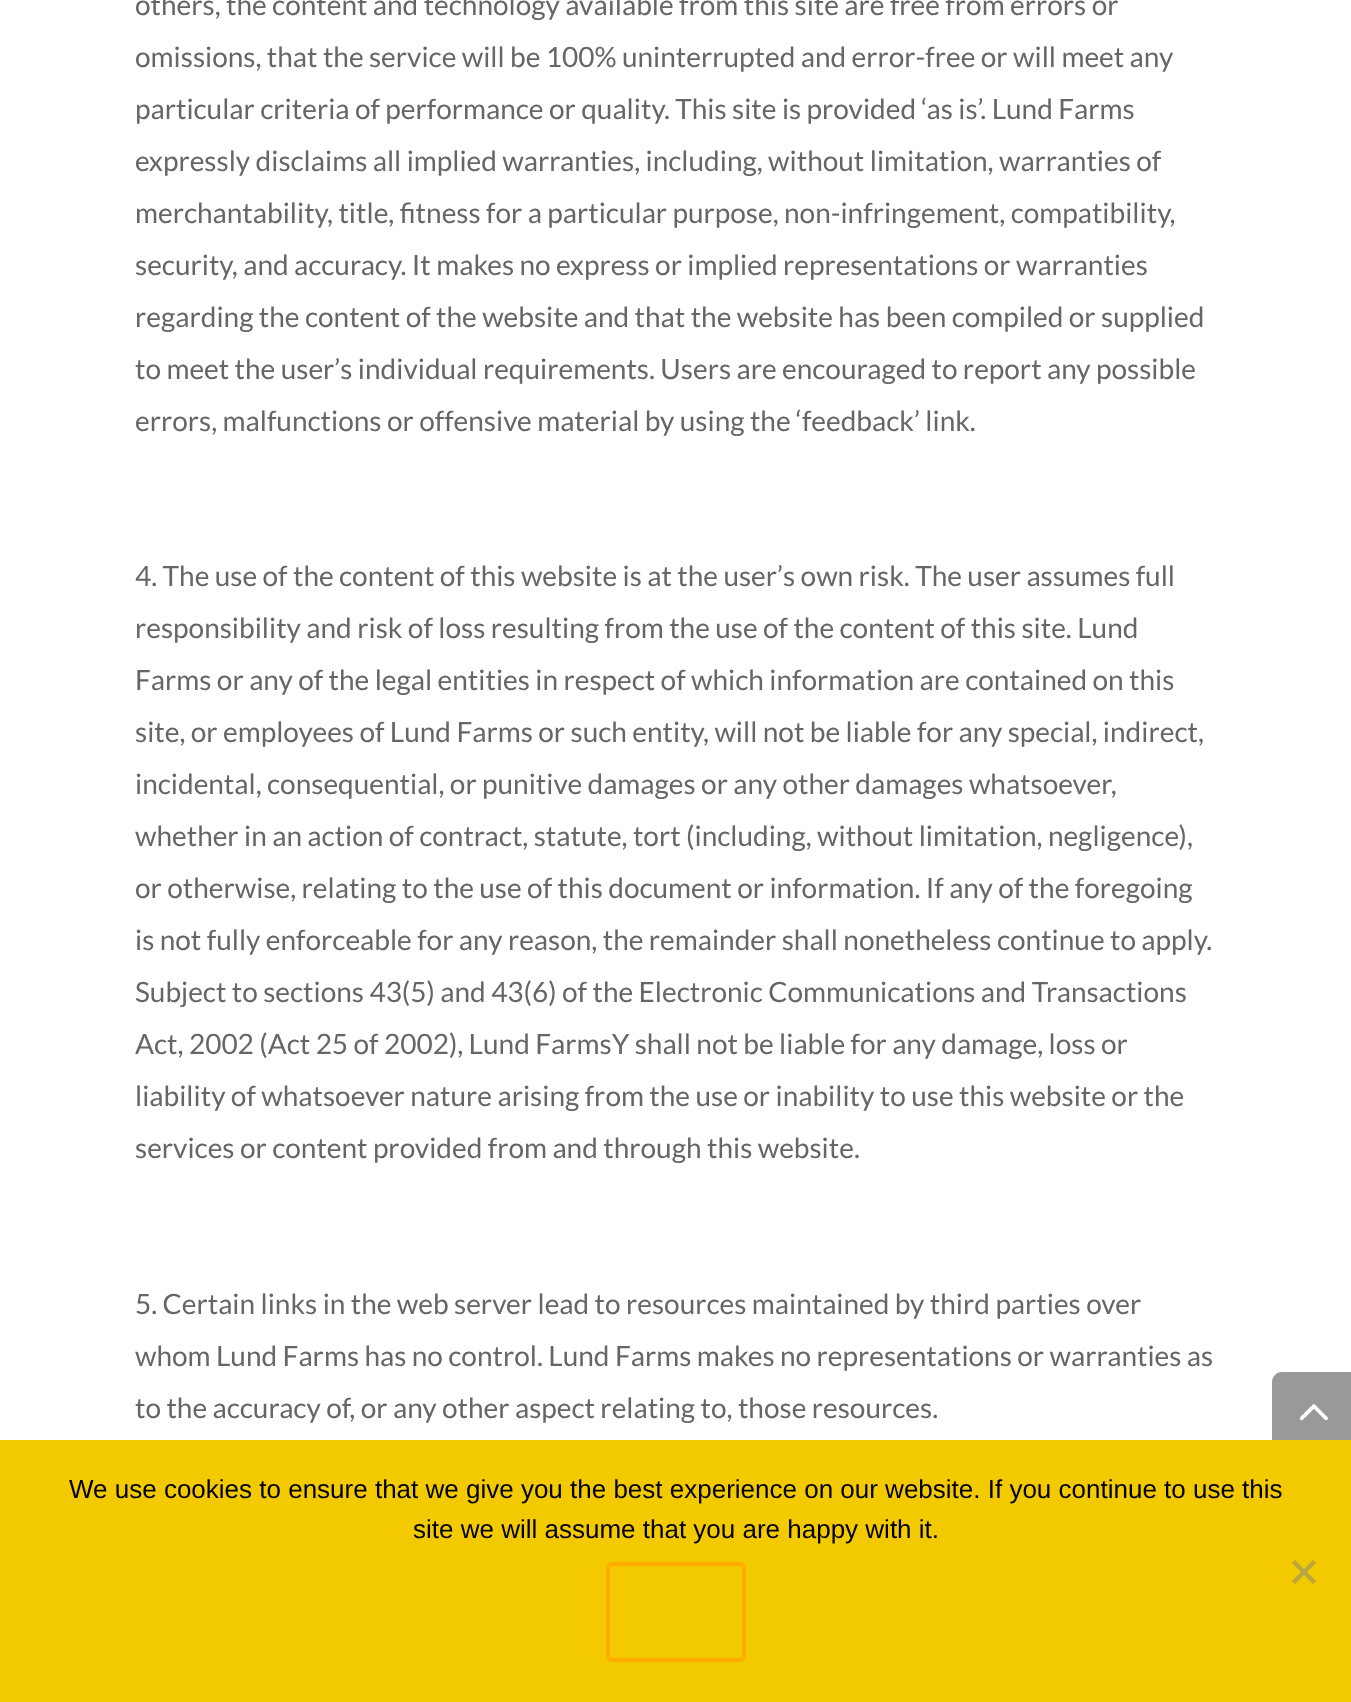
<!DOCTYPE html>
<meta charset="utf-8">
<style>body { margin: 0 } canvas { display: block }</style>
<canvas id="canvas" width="1351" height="1702"></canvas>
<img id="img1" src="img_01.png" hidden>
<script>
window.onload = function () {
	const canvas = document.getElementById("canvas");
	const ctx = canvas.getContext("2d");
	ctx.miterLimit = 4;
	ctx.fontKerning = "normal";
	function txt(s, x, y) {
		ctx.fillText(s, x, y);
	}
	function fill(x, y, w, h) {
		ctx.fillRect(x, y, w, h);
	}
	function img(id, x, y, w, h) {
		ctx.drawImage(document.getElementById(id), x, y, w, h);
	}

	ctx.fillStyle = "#FFFFFF";
	fill(0, 0, 1351, 1702);
	ctx.fillStyle = "#999999";
	ctx.beginPath();
	ctx.moveTo(1282, 1372);
	ctx.lineTo(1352, 1372);
	ctx.lineTo(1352, 1452);
	ctx.lineTo(1282, 1452);
	ctx.bezierCurveTo(1276.5, 1452, 1272, 1447.5, 1272, 1442);
	ctx.lineTo(1272, 1382);
	ctx.bezierCurveTo(1272, 1376.5, 1276.5, 1372, 1282, 1372);
	ctx.closePath();
	ctx.fill();
	img("img1", 1299, 1404, 29, 17);
	ctx.fillStyle = "#F3CA00";
	fill(0, 1440, 1351, 262);
	ctx.beginPath();
	ctx.roundRect(608, 1564, 136, 96, 4);
	ctx.strokeStyle = "#FFAC01";
	ctx.lineWidth = 4;
	ctx.stroke();
	ctx.fillStyle = "#BAA540";
	ctx.beginPath();
	ctx.moveTo(1313, 1560);
	ctx.lineTo(1316, 1563);
	ctx.lineTo(1295, 1584);
	ctx.lineTo(1292, 1581);
	ctx.closePath();
	ctx.fill();
	ctx.beginPath();
	ctx.moveTo(1292, 1563);
	ctx.lineTo(1295, 1560);
	ctx.lineTo(1316, 1581);
	ctx.lineTo(1313, 1584);
	ctx.closePath();
	ctx.fill();
	ctx.font = "28px Lato";
	ctx.fillStyle = "#666666";
	txt("others, the content and technology available from this site are free from errors or", 135, 15);
	txt("omissions, that the service will be 100% uninterrupted and error-free or will meet any", 135, 67);
	txt("particular criteria of performance or quality. This site is provided ‘as is’. Lund Farms", 135, 119);
	txt("expressly disclaims all implied warranties, including, without limitation, warranties of", 135, 171);
	txt("merchantability, title, fitness for a particular purpose, non-infringement, compatibility,", 135, 223);
	txt("security, and accuracy. It makes no express or implied representations or warranties", 135, 275);
	txt("regarding the content of the website and that the website has been compiled or supplied", 135, 327);
	txt("to meet the user’s individual requirements. Users are encouraged to report any possible", 135, 379);
	txt("errors, malfunctions or offensive material by using the ‘feedback’ link.", 135, 431);
	txt("4. The use of the content of this website is at the user’s own risk. The user assumes full", 135, 586);
	txt("responsibility and risk of loss resulting from the use of the content of this site. Lund", 135, 638);
	txt("Farms or any of the legal entities in respect of which information are contained on this", 135, 690);
	txt("site, or employees of Lund Farms or such entity, will not be liable for any special, indirect,", 135, 742);
	txt("incidental, consequential, or punitive damages or any other damages whatsoever,", 135, 794);
	txt("whether in an action of contract, statute, tort (including, without limitation, negligence),", 135, 846);
	txt("or otherwise, relating to the use of this document or information. If any of the foregoing", 135, 898);
	txt("is not fully enforceable for any reason, the remainder shall nonetheless continue to apply.", 135, 950);
	txt("Subject to sections 43(5) and 43(6) of the Electronic Communications and Transactions", 135, 1002);
	txt("Act, 2002 (Act 25 of 2002), Lund FarmsY shall not be liable for any damage, loss or", 135, 1054);
	txt("liability of whatsoever nature arising from the use or inability to use this website or the", 135, 1106);
	txt("services or content provided from and through this website.", 135, 1158);
	txt("5. Certain links in the web server lead to resources maintained by third parties over", 135, 1314);
	txt("whom Lund Farms has no control. Lund Farms makes no representations or warranties as", 135, 1366);
	txt("to the accuracy of, or any other aspect relating to, those resources.", 135, 1418);
	ctx.font = "26px Liberation Sans";
	ctx.fillStyle = "#000000";
	txt("We use cookies to ensure that we give you the best experience on our website. If you continue to use this", 69, 1498);
	txt("site we will assume that you are happy with it.", 413, 1538);
};
</script>
